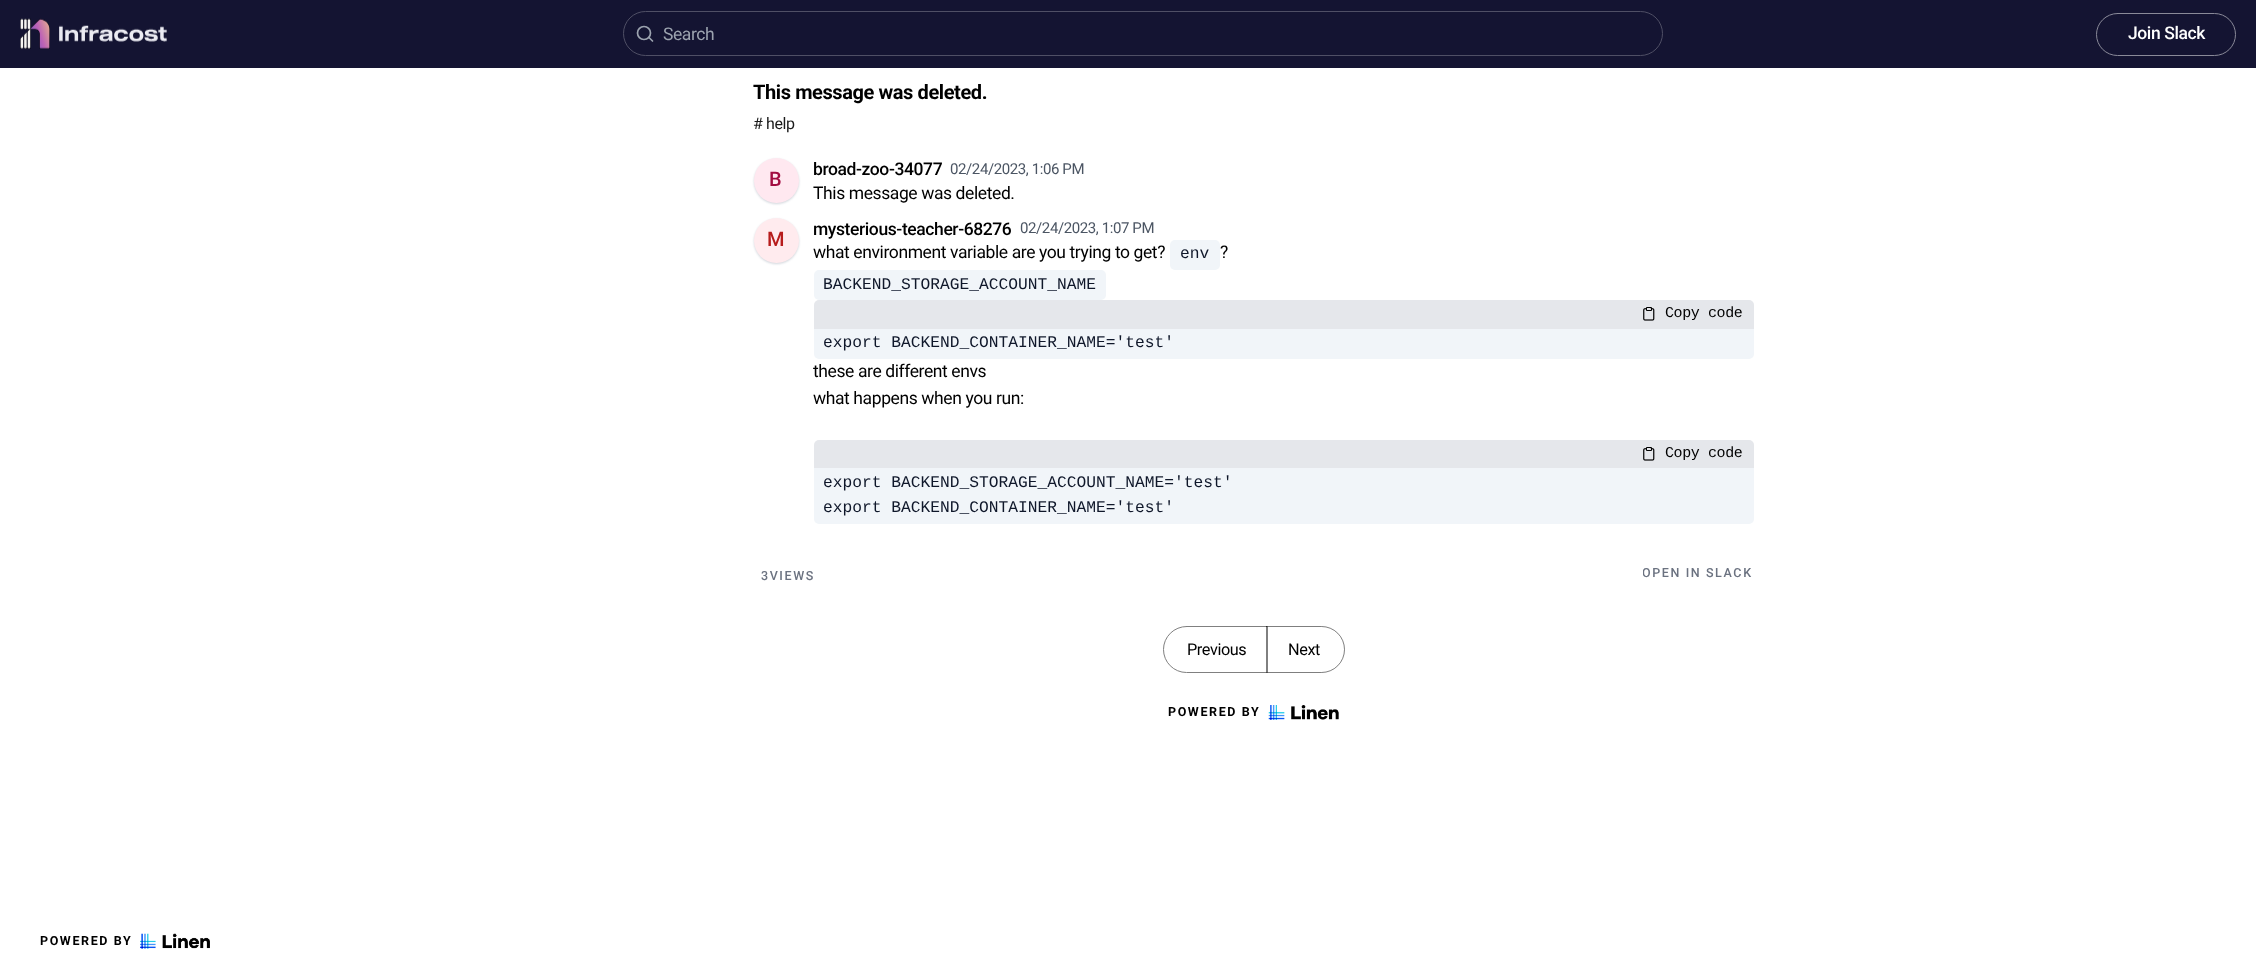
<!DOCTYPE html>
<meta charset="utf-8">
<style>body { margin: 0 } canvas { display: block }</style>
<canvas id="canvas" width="2256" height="961"></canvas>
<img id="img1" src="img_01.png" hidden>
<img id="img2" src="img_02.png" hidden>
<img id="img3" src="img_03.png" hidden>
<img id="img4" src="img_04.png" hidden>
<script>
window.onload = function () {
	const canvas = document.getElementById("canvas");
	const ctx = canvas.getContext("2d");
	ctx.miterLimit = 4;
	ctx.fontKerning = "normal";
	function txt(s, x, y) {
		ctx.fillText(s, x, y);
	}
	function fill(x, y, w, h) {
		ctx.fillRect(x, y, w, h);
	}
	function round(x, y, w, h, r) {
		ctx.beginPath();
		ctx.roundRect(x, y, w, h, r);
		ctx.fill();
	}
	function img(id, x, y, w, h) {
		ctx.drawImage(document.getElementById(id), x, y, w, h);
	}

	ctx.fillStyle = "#FFFFFF";
	fill(0, 0, 2256, 961);
	ctx.fillStyle = "#141432";
	fill(0, 0, 2256, 68);
	img("img1", 20, 18, 147, 31);
	ctx.beginPath();
	ctx.roundRect(623.5, 11.5, 1039, 44, 22);
	ctx.strokeStyle = "#4F4F65";
	ctx.stroke();
	ctx.beginPath();
	ctx.arc(644, 33, 6.5, 0, Math.PI * 2);
	ctx.strokeStyle = "#9CA3AF";
	ctx.lineWidth = 1.7;
	ctx.stroke();
	ctx.beginPath();
	ctx.moveTo(652.5, 41);
	ctx.lineTo(649, 37.5);
	ctx.lineCap = "round";
	ctx.lineJoin = "round";
	ctx.stroke();
	ctx.beginPath();
	ctx.roundRect(2096.5, 13.5, 139, 42, 21);
	ctx.strokeStyle = "#8A8A99";
	ctx.lineWidth = 1;
	ctx.lineJoin = "miter";
	ctx.stroke();
	ctx.fillStyle = "#D1D5DB";
	ctx.filter = "blur(1px)";
	ctx.beginPath();
	ctx.roundRect(754, 159, 45, 45, 22.5);
	ctx.fill();
	ctx.filter = "none";
	ctx.fillStyle = "#FFE8F0";
	ctx.beginPath();
	ctx.arc(776.5, 180.5, 22.5, 0, Math.PI * 2);
	ctx.fill();
	ctx.fillStyle = "#D1D5DB";
	ctx.filter = "blur(1px)";
	ctx.beginPath();
	ctx.roundRect(754, 219, 45, 45, 22.5);
	ctx.fill();
	ctx.filter = "none";
	ctx.fillStyle = "#FFEBEE";
	ctx.beginPath();
	ctx.arc(776.5, 240.5, 22.5, 0, Math.PI * 2);
	ctx.fill();
	ctx.fillStyle = "#F1F5F9";
	round(1170, 240, 50, 30, 5);
	round(814, 270, 292, 30, 5);
	ctx.fillStyle = "#E5E7EB";
	ctx.beginPath();
	ctx.roundRect(814, 300, 940, 29, [5, 5, 0, 0]);
	ctx.fill();
	img("img2", 1643, 307, 12, 14);
	ctx.fillStyle = "#F1F5F9";
	ctx.beginPath();
	ctx.roundRect(814, 329, 940, 30, [0, 0, 5, 5]);
	ctx.fill();
	ctx.fillStyle = "#E5E7EB";
	ctx.beginPath();
	ctx.roundRect(814, 440, 940, 28, [5, 5, 0, 0]);
	ctx.fill();
	img("img2", 1643, 447, 12, 14);
	ctx.fillStyle = "#F1F5F9";
	ctx.beginPath();
	ctx.roundRect(814, 468, 940, 56, [0, 0, 5, 5]);
	ctx.fill();
	ctx.beginPath();
	ctx.roundRect(1163.5, 626.5, 104, 46, [23, 0, 0, 23]);
	ctx.strokeStyle = "#808080";
	ctx.stroke();
	ctx.beginPath();
	ctx.roundRect(1266.5, 626.5, 78, 46, [0, 23, 23, 0]);
	ctx.strokeStyle = "rgba(0, 0, 0, 0.5)";
	ctx.stroke();
	img("img3", 1268, 705, 71, 15);
	img("img4", 140, 933, 70, 16);
	ctx.letterSpacing = "-0.4px";
	ctx.font = "17.5px Roboto";
	ctx.fillStyle = "#9CA3AF";
	txt("Search", 663, 40);
	ctx.font = "500 17.5px Roboto";
	ctx.fillStyle = "#FFFFFF";
	txt("Join Slack", 2128, 39);
	ctx.font = "bold 20px Roboto";
	ctx.fillStyle = "#000000";
	txt("This message was deleted.", 753, 99);
	ctx.font = "16px Roboto";
	ctx.fillStyle = "#1A1A1A";
	txt("# help", 753, 129);
	ctx.font = "500 20px Roboto";
	ctx.fillStyle = "#A20D41";
	txt("B", 769, 186);
	ctx.font = "500 17.5px Roboto";
	ctx.fillStyle = "#000000";
	txt("broad-zoo-34077", 813, 175);
	ctx.font = "15px Roboto";
	ctx.fillStyle = "#4B5563";
	txt("02/24/2023, 1:06 PM", 950, 174);
	ctx.font = "17.5px Roboto";
	ctx.fillStyle = "#000000";
	txt("This message was deleted.", 813, 199);
	ctx.font = "500 20px Roboto";
	ctx.fillStyle = "#B71C1C";
	txt("M", 767, 246);
	ctx.font = "500 17.5px Roboto";
	ctx.fillStyle = "#000000";
	txt("mysterious-teacher-68276", 813, 235);
	ctx.font = "15px Roboto";
	ctx.fillStyle = "#4B5563";
	txt("02/24/2023, 1:07 PM", 1020, 233);
	ctx.font = "17.5px Roboto";
	ctx.fillStyle = "#000000";
	txt("what environment variable are you trying to get?", 813, 258);
	ctx.letterSpacing = "0px";
	ctx.font = "16.25px Liberation Mono";
	ctx.fillStyle = "#0F172A";
	txt("env", 1180, 258);
	ctx.letterSpacing = "-0.4px";
	ctx.font = "17.5px Roboto";
	ctx.fillStyle = "#000000";
	txt("?", 1220, 258);
	ctx.letterSpacing = "0px";
	ctx.font = "16.25px Liberation Mono";
	ctx.fillStyle = "#0F172A";
	txt("BACKEND_STORAGE_ACCOUNT_NAME", 823, 289);
	ctx.letterSpacing = "-0.4px";
	ctx.font = "15px Liberation Mono";
	ctx.fillStyle = "#000000";
	txt("Copy code", 1665, 317);
	ctx.letterSpacing = "0px";
	ctx.font = "16.25px Liberation Mono";
	ctx.fillStyle = "#0F172A";
	txt("export BACKEND_CONTAINER_NAME='test'", 823, 347);
	ctx.letterSpacing = "-0.4px";
	ctx.font = "17.5px Roboto";
	ctx.fillStyle = "#000000";
	txt("these are different envs", 813, 377);
	txt("what happens when you run:", 813, 404);
	ctx.font = "15px Liberation Mono";
	txt("Copy code", 1665, 457);
	ctx.letterSpacing = "0px";
	ctx.font = "16.25px Liberation Mono";
	ctx.fillStyle = "#0F172A";
	txt("export BACKEND_STORAGE_ACCOUNT_NAME='test'", 823, 487);
	txt("export BACKEND_CONTAINER_NAME='test'", 823, 512);
	ctx.letterSpacing = "1.6px";
	ctx.font = "500 12.5px Roboto";
	ctx.fillStyle = "#6B7280";
	txt("3VIEWS", 761, 580);
	ctx.save();
	ctx.beginPath();
	ctx.rect(1643, 564, 111, 19);
	ctx.clip();
	txt("OPEN IN SLACK", 1642, 577);
	ctx.restore();
	ctx.letterSpacing = "-0.4px";
	ctx.font = "16.25px Roboto";
	ctx.fillStyle = "#000000";
	txt("Previous", 1187, 655);
	txt("Next", 1288, 655);
	ctx.letterSpacing = "1.6px";
	ctx.font = "bold 12.5px Roboto";
	txt("POWERED BY", 1168, 716);
	txt("POWERED BY", 40, 945);
};
</script>
